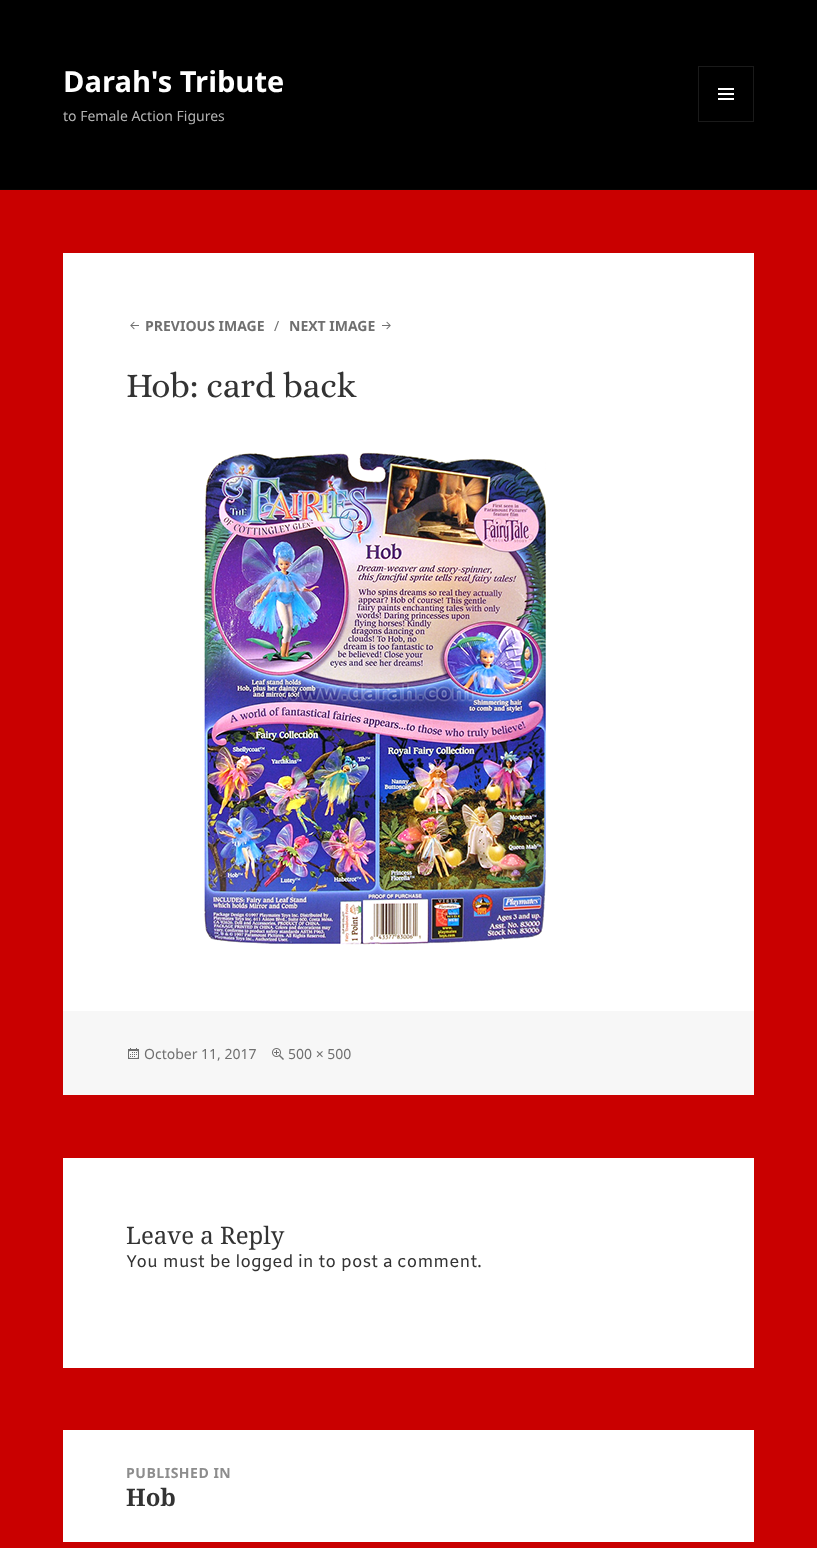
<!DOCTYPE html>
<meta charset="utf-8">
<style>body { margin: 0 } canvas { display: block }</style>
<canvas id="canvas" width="817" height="1548"></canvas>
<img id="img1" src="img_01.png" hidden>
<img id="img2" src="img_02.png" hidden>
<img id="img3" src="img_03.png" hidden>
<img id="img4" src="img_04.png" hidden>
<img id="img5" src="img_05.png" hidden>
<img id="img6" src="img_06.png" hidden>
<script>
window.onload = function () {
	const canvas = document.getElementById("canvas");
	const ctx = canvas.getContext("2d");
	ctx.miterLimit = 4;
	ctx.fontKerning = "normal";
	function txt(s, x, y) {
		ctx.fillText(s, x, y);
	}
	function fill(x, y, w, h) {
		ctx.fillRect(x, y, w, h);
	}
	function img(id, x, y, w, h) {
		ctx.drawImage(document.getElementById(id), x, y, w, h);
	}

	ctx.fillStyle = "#C90000";
	fill(0, 0, 817, 1548);
	ctx.fillStyle = "#000000";
	fill(0, 0, 817, 189);
	ctx.fillStyle = "#050505";
	fill(0, 189, 817, 1);
	ctx.strokeStyle = "#1A1A1A";
	ctx.strokeRect(698.5, 66.5, 55, 55);
	img("img1", 718, 88, 16, 12);
	ctx.fillStyle = "#FFFFFF";
	fill(63, 253, 691, 758);
	img("img2", 130, 321, 9, 9);
	img("img3", 382, 321, 9, 9);
	img("img4", 204, 452, 343, 493);
	ctx.fillStyle = "#F7F7F7";
	fill(63, 1011, 691, 84);
	img("img5", 128, 1048, 11, 11);
	img("img6", 272, 1048, 12, 12);
	ctx.fillStyle = "#FFFFFF";
	fill(63, 1158, 691, 210);
	fill(63, 1430, 691, 112);
	ctx.font = "bold 29px Noto Sans";
	txt("Darah's Tribute", 63, 92);
	ctx.font = "14px Noto Sans";
	ctx.fillStyle = "#B3B3B3";
	txt("to Female Action Figures", 63, 121);
	ctx.font = "bold 14px Noto Sans";
	ctx.fillStyle = "#707070";
	txt("PREVIOUS IMAGE", 145, 331);
	ctx.font = "14px Noto Sans";
	txt("∕", 274, 331);
	ctx.font = "bold 14px Noto Sans";
	txt("NEXT IMAGE", 289, 331);
	ctx.font = "35px Alice";
	ctx.fillStyle = "#333333";
	txt("Hob: card back", 126, 397);
	ctx.font = "14px Noto Sans";
	ctx.fillStyle = "#707070";
	txt("October 11, 2017", 144, 1059);
	txt("500 × 500", 288, 1059);
	ctx.font = "24px Noto Serif";
	ctx.fillStyle = "#333333";
	txt("Leave a Reply", 126, 1244);
	ctx.font = "17px Amiko";
	txt("You must be logged in to post a comment.", 126, 1267);
	ctx.letterSpacing = "0.5px";
	ctx.font = "bold 14px Noto Sans";
	ctx.fillStyle = "#8D8D8D";
	txt("PUBLISHED IN", 126, 1478);
	ctx.letterSpacing = "0px";
	ctx.font = "bold 24px Noto Serif";
	ctx.fillStyle = "#333333";
	txt("Hob", 126, 1506);
};
</script>
